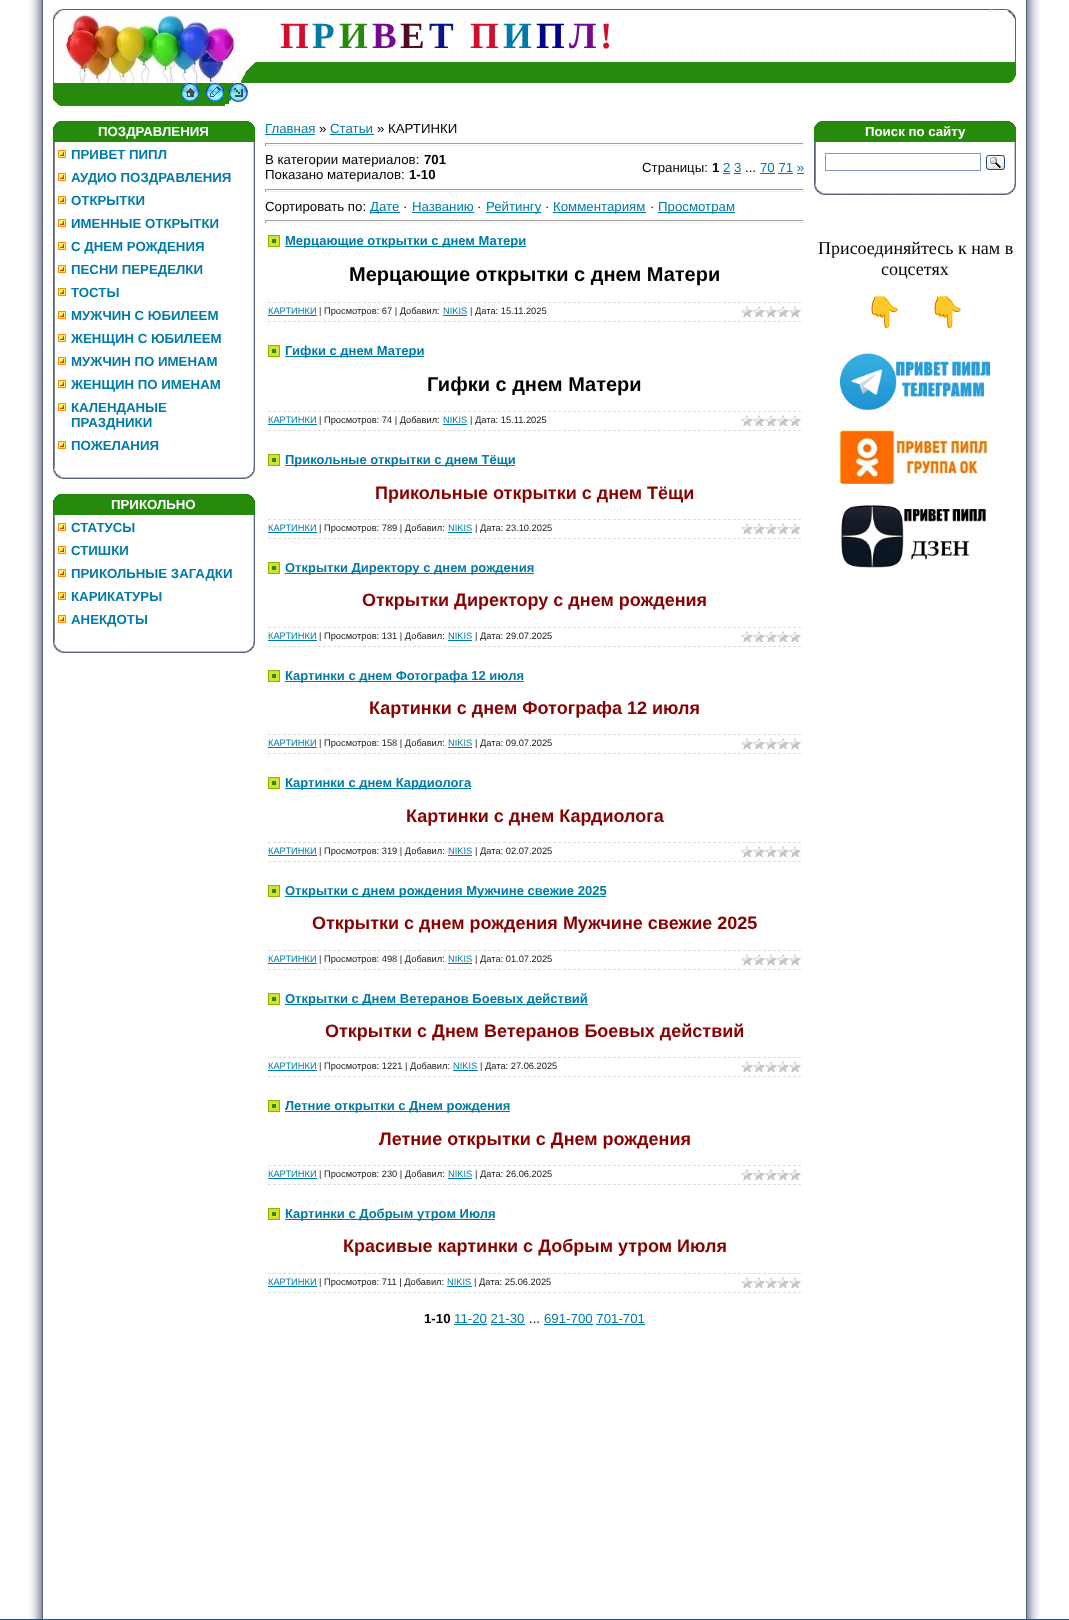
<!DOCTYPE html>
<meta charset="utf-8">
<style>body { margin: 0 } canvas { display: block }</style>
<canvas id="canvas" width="1069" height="1620"></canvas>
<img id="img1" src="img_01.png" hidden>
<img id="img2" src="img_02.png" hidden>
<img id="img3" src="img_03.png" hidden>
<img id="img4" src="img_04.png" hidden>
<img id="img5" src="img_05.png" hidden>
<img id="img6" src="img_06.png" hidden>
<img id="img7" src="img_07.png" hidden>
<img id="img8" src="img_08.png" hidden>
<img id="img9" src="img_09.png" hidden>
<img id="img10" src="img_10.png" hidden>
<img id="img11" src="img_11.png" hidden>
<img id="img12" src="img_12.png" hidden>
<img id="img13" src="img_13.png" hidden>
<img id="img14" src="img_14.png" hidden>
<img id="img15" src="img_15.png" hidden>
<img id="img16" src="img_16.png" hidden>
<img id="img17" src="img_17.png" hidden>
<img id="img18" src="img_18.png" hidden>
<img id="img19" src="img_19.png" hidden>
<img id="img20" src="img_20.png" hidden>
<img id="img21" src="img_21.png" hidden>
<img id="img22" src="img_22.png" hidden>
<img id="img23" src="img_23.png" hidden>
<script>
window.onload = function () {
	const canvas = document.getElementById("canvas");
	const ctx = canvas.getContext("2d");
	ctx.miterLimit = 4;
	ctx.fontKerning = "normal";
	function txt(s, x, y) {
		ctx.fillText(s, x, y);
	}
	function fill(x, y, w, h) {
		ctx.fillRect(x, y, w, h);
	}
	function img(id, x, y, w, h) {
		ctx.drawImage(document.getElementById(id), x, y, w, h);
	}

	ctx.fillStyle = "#FFFFFF";
	fill(0, 0, 1069, 1620);
	img("img1", 29, 0, 14, 1619);
	img("img2", 53, 9, 212, 53);
	img("img3", 265, 9, 718, 49);
	img("img4", 983, 9, 33, 53);
	img("img5", 53, 62, 212, 21);
	ctx.fillStyle = "#268B0D";
	fill(265, 62, 718, 21);
	img("img6", 983, 62, 33, 21);
	img("img7", 53, 83, 127, 23);
	img("img8", 180, 83, 20, 23);
	fill(200, 83, 5, 23);
	img("img9", 205, 83, 20, 23);
	fill(225, 83, 4, 21);
	img("img10", 229, 83, 19, 19);
	img("img11", 53, 121, 202, 21);
	img("img12", 53, 142, 202, 324);
	img("img13", 58, 150, 8, 8);
	img("img13", 58, 173, 8, 8);
	img("img13", 58, 196, 8, 8);
	img("img13", 58, 219, 8, 8);
	img("img13", 58, 242, 8, 8);
	img("img13", 58, 265, 8, 8);
	img("img13", 58, 288, 8, 8);
	img("img13", 58, 311, 8, 8);
	img("img13", 58, 334, 8, 8);
	img("img13", 58, 357, 8, 8);
	img("img13", 58, 380, 8, 8);
	img("img13", 58, 403, 8, 8);
	img("img13", 58, 441, 8, 8);
	img("img14", 53, 466, 202, 13);
	img("img11", 53, 494, 202, 21);
	img("img15", 53, 515, 202, 125);
	img("img13", 58, 523, 8, 8);
	img("img13", 58, 546, 8, 8);
	img("img13", 58, 569, 8, 8);
	img("img13", 58, 592, 8, 8);
	img("img13", 58, 615, 8, 8);
	img("img14", 53, 640, 202, 13);
	ctx.fillStyle = "#007BA7";
	fill(265, 134, 50, 1);
	fill(330, 134, 44, 1);
	ctx.fillStyle = "#9F9F9F";
	fill(265, 143, 539, 1);
	ctx.fillStyle = "#EEEEEE";
	fill(803, 143, 1, 3);
	fill(265, 145, 539, 1);
	ctx.fillStyle = "#9F9F9F";
	fill(265, 143, 1, 3);
	ctx.fillStyle = "#007BA7";
	fill(723, 173, 7, 1);
	fill(734, 173, 7, 1);
	fill(760, 173, 15, 1);
	fill(778, 173, 15, 1);
	fill(797, 173, 7, 1);
	ctx.fillStyle = "#9F9F9F";
	fill(265, 189, 539, 1);
	ctx.fillStyle = "#EEEEEE";
	fill(803, 189, 1, 3);
	fill(265, 191, 539, 1);
	ctx.fillStyle = "#9F9F9F";
	fill(265, 189, 1, 3);
	ctx.fillStyle = "#007BA7";
	fill(370, 212, 30, 1);
	fill(412, 212, 62, 1);
	fill(486, 212, 55, 1);
	fill(553, 212, 93, 1);
	fill(658, 212, 77, 1);
	ctx.fillStyle = "#9F9F9F";
	fill(265, 220, 539, 1);
	ctx.fillStyle = "#EEEEEE";
	fill(803, 220, 1, 3);
	fill(265, 222, 539, 1);
	ctx.fillStyle = "#9F9F9F";
	fill(265, 220, 1, 3);
	img("img16", 268, 235, 12, 12);
	ctx.fillStyle = "#007BA7";
	fill(285, 246, 241, 1);
	ctx.beginPath();
	ctx.moveTo(268, 302.5);
	ctx.lineTo(801, 302.5);
	ctx.strokeStyle = "#DDDDDD";
	ctx.setLineDash([3, 2]);
	ctx.stroke();
	ctx.beginPath();
	ctx.moveTo(268, 321.5);
	ctx.lineTo(801, 321.5);
	ctx.stroke();
	fill(268, 315, 49, 1);
	fill(443, 315, 24, 1);
	img("img17", 741, 306, 60, 12);
	img("img16", 268, 345, 12, 12);
	fill(285, 356, 139, 1);
	ctx.beginPath();
	ctx.moveTo(268, 411.5);
	ctx.lineTo(801, 411.5);
	ctx.stroke();
	ctx.beginPath();
	ctx.moveTo(268, 430.5);
	ctx.lineTo(801, 430.5);
	ctx.stroke();
	fill(268, 424, 49, 1);
	fill(443, 424, 24, 1);
	img("img17", 741, 415, 60, 12);
	img("img16", 268, 454, 12, 12);
	fill(285, 465, 230, 1);
	ctx.beginPath();
	ctx.moveTo(268, 519.5);
	ctx.lineTo(801, 519.5);
	ctx.stroke();
	ctx.beginPath();
	ctx.moveTo(268, 538.5);
	ctx.lineTo(801, 538.5);
	ctx.stroke();
	fill(268, 532, 49, 1);
	fill(448, 532, 24, 1);
	img("img17", 741, 523, 60, 12);
	img("img16", 268, 562, 12, 12);
	fill(285, 573, 249, 1);
	ctx.beginPath();
	ctx.moveTo(268, 627.5);
	ctx.lineTo(801, 627.5);
	ctx.stroke();
	ctx.beginPath();
	ctx.moveTo(268, 646.5);
	ctx.lineTo(801, 646.5);
	ctx.stroke();
	fill(268, 640, 49, 1);
	fill(448, 640, 24, 1);
	img("img17", 741, 631, 60, 12);
	img("img16", 268, 670, 12, 12);
	fill(285, 681, 239, 1);
	ctx.beginPath();
	ctx.moveTo(268, 734.5);
	ctx.lineTo(801, 734.5);
	ctx.stroke();
	ctx.beginPath();
	ctx.moveTo(268, 753.5);
	ctx.lineTo(801, 753.5);
	ctx.stroke();
	fill(268, 747, 49, 1);
	fill(448, 747, 24, 1);
	img("img17", 741, 738, 60, 12);
	img("img16", 268, 777, 12, 12);
	fill(285, 788, 186, 1);
	ctx.beginPath();
	ctx.moveTo(268, 842.5);
	ctx.lineTo(801, 842.5);
	ctx.stroke();
	ctx.beginPath();
	ctx.moveTo(268, 861.5);
	ctx.lineTo(801, 861.5);
	ctx.stroke();
	fill(268, 855, 49, 1);
	fill(448, 855, 24, 1);
	img("img17", 741, 846, 60, 12);
	img("img16", 268, 885, 12, 12);
	fill(285, 896, 321, 1);
	ctx.beginPath();
	ctx.moveTo(268, 950.5);
	ctx.lineTo(801, 950.5);
	ctx.stroke();
	ctx.beginPath();
	ctx.moveTo(268, 969.5);
	ctx.lineTo(801, 969.5);
	ctx.stroke();
	fill(268, 963, 49, 1);
	fill(448, 963, 24, 1);
	img("img17", 741, 954, 60, 12);
	img("img16", 268, 993, 12, 12);
	fill(285, 1004, 303, 1);
	ctx.beginPath();
	ctx.moveTo(268, 1057.5);
	ctx.lineTo(801, 1057.5);
	ctx.stroke();
	ctx.beginPath();
	ctx.moveTo(268, 1076.5);
	ctx.lineTo(801, 1076.5);
	ctx.stroke();
	fill(268, 1070, 49, 1);
	fill(453, 1070, 25, 1);
	img("img17", 741, 1061, 60, 12);
	img("img16", 268, 1100, 12, 12);
	fill(285, 1111, 225, 1);
	ctx.beginPath();
	ctx.moveTo(268, 1165.5);
	ctx.lineTo(801, 1165.5);
	ctx.stroke();
	ctx.beginPath();
	ctx.moveTo(268, 1184.5);
	ctx.lineTo(801, 1184.5);
	ctx.stroke();
	fill(268, 1178, 49, 1);
	fill(448, 1178, 24, 1);
	img("img17", 741, 1169, 60, 12);
	img("img16", 268, 1208, 12, 12);
	fill(285, 1219, 210, 1);
	ctx.beginPath();
	ctx.moveTo(268, 1273.5);
	ctx.lineTo(801, 1273.5);
	ctx.stroke();
	ctx.beginPath();
	ctx.moveTo(268, 1292.5);
	ctx.lineTo(801, 1292.5);
	ctx.stroke();
	fill(268, 1286, 49, 1);
	fill(447, 1286, 25, 1);
	img("img17", 741, 1277, 60, 12);
	fill(454, 1324, 33, 1);
	fill(491, 1324, 34, 1);
	fill(544, 1324, 49, 1);
	fill(596, 1324, 49, 1);
	img("img11", 814, 121, 202, 21);
	img("img18", 814, 142, 202, 40);
	ctx.strokeStyle = "#7F9DB9";
	ctx.setLineDash([]);
	ctx.strokeRect(825.5, 153.5, 155, 17);
	img("img19", 986, 155, 19, 15);
	img("img14", 814, 182, 202, 13);
	img("img20", 840, 353, 150, 58);
	img("img21", 840, 430, 149, 54);
	img("img22", 841, 505, 145, 63);
	img("img23", 1026, 0, 14, 1619);
	ctx.fillStyle = "#024FD8";
	fill(0, 1619, 1069, 1);
	ctx.font = "bold 37px Liberation Serif";
	ctx.fillStyle = "#D00F2C";
	txt("П", 280, 48);
	ctx.fillStyle = "#007BA7";
	txt("Р", 312, 48);
	ctx.fillStyle = "#268B0D";
	txt("И", 339, 48);
	ctx.fillStyle = "#74098F";
	txt("В", 372, 48);
	ctx.fillStyle = "#510B1F";
	txt("Е", 400, 48);
	ctx.fillStyle = "#0A138E";
	txt("Т", 429, 48);
	ctx.fillStyle = "#D00F2C";
	txt("П", 470, 48);
	ctx.fillStyle = "#007BA7";
	txt("И", 503, 48);
	ctx.fillStyle = "#00008B";
	txt("П", 536, 48);
	ctx.fillStyle = "#74098F";
	txt("Л", 569, 48);
	ctx.fillStyle = "#D00F2C";
	txt("!", 600, 48);
	ctx.font = "bold 13.25px Liberation Sans";
	ctx.fillStyle = "#FFFFFF";
	txt("ПОЗДРАВЛЕНИЯ", 98, 136);
	ctx.fillStyle = "#007BA7";
	txt("ПРИВЕТ ПИПЛ", 71, 159);
	txt("АУДИО ПОЗДРАВЛЕНИЯ", 71, 182);
	txt("ОТКРЫТКИ", 71, 205);
	txt("ИМЕННЫЕ ОТКРЫТКИ", 71, 228);
	txt("С ДНЕМ РОЖДЕНИЯ", 71, 251);
	txt("ПЕСНИ ПЕРЕДЕЛКИ", 71, 274);
	txt("ТОСТЫ", 71, 297);
	txt("МУЖЧИН С ЮБИЛЕЕМ", 71, 320);
	txt("ЖЕНЩИН С ЮБИЛЕЕМ", 71, 343);
	txt("МУЖЧИН ПО ИМЕНАМ", 71, 366);
	txt("ЖЕНЩИН ПО ИМЕНАМ", 71, 389);
	txt("КАЛЕНДАНЫЕ", 71, 412);
	txt("ПРАЗДНИКИ", 71, 427);
	txt("ПОЖЕЛАНИЯ", 71, 450);
	ctx.fillStyle = "#FFFFFF";
	txt("ПРИКОЛЬНО", 111, 509);
	ctx.fillStyle = "#007BA7";
	txt("СТАТУСЫ", 71, 532);
	txt("СТИШКИ", 71, 555);
	txt("ПРИКОЛЬНЫЕ ЗАГАДКИ", 71, 578);
	txt("КАРИКАТУРЫ", 71, 601);
	txt("АНЕКДОТЫ", 71, 624);
	ctx.font = "13.25px Liberation Sans";
	txt("Главная", 265, 133);
	ctx.fillStyle = "#000000";
	txt("»", 319, 133);
	ctx.fillStyle = "#007BA7";
	txt("Статьи", 330, 133);
	ctx.fillStyle = "#000000";
	txt("» КАРТИНКИ", 377, 133);
	txt("В категории материалов:", 265, 164);
	ctx.font = "bold 13.25px Liberation Sans";
	txt("701", 424, 164);
	ctx.font = "13.25px Liberation Sans";
	txt("Показано материалов:", 265, 179);
	ctx.font = "bold 13.25px Liberation Sans";
	txt("1-10", 409, 179);
	ctx.font = "13.25px Liberation Sans";
	txt("Страницы:", 642, 172);
	ctx.font = "bold 13.25px Liberation Sans";
	txt("1", 712, 172);
	ctx.font = "13.25px Liberation Sans";
	ctx.fillStyle = "#007BA7";
	txt("2 3", 723, 172);
	ctx.fillStyle = "#000000";
	txt("...", 745, 172);
	ctx.fillStyle = "#007BA7";
	txt("70 71 »", 760, 172);
	ctx.fillStyle = "#000000";
	txt("Сортировать по:", 265, 211);
	ctx.fillStyle = "#007BA7";
	txt("Дате", 370, 211);
	ctx.fillStyle = "#000000";
	txt("·", 403, 211);
	ctx.fillStyle = "#007BA7";
	txt("Названию", 412, 211);
	ctx.fillStyle = "#000000";
	txt("·", 477, 211);
	ctx.fillStyle = "#007BA7";
	txt("Рейтингу", 486, 211);
	ctx.fillStyle = "#000000";
	txt("·", 545, 211);
	ctx.fillStyle = "#007BA7";
	txt("Комментариям", 553, 211);
	ctx.fillStyle = "#000000";
	txt("·", 650, 211);
	ctx.fillStyle = "#007BA7";
	txt("Просмотрам", 658, 211);
	ctx.font = "bold 13px Liberation Sans";
	txt("Мерцающие открытки с днем Матери", 285, 245);
	ctx.font = "bold 20px Liberation Sans";
	ctx.fillStyle = "#000000";
	txt("Мерцающие открытки с днем Матери", 349, 281);
	ctx.font = "9.3px Liberation Sans";
	ctx.fillStyle = "#007BA7";
	txt("КАРТИНКИ", 268, 314);
	ctx.fillStyle = "#1A1A1A";
	txt("| Просмотров: 67 | Добавил:", 319, 314);
	ctx.fillStyle = "#007BA7";
	txt("NIKIS", 443, 314);
	ctx.fillStyle = "#1A1A1A";
	txt("| Дата: 15.11.2025", 470, 314);
	ctx.font = "bold 13px Liberation Sans";
	ctx.fillStyle = "#007BA7";
	txt("Гифки с днем Матери", 285, 355);
	ctx.font = "bold 20px Liberation Sans";
	ctx.fillStyle = "#000000";
	txt("Гифки с днем Матери", 427, 391);
	ctx.font = "9.3px Liberation Sans";
	ctx.fillStyle = "#007BA7";
	txt("КАРТИНКИ", 268, 423);
	ctx.fillStyle = "#1A1A1A";
	txt("| Просмотров: 74 | Добавил:", 319, 423);
	ctx.fillStyle = "#007BA7";
	txt("NIKIS", 443, 423);
	ctx.fillStyle = "#1A1A1A";
	txt("| Дата: 15.11.2025", 470, 423);
	ctx.font = "bold 13px Liberation Sans";
	ctx.fillStyle = "#007BA7";
	txt("Прикольные открытки с днем Тёщи", 285, 464);
	ctx.font = "bold 18px Liberation Sans";
	ctx.fillStyle = "#880000";
	txt("Прикольные открытки с днем Тёщи", 375, 499);
	ctx.font = "9.3px Liberation Sans";
	ctx.fillStyle = "#007BA7";
	txt("КАРТИНКИ", 268, 531);
	ctx.fillStyle = "#1A1A1A";
	txt("| Просмотров: 789 | Добавил:", 319, 531);
	ctx.fillStyle = "#007BA7";
	txt("NIKIS", 448, 531);
	ctx.fillStyle = "#1A1A1A";
	txt("| Дата: 23.10.2025", 475, 531);
	ctx.font = "bold 13px Liberation Sans";
	ctx.fillStyle = "#007BA7";
	txt("Открытки Директору с днем рождения", 285, 572);
	ctx.font = "bold 18px Liberation Sans";
	ctx.fillStyle = "#880000";
	txt("Открытки Директору с днем рождения", 362, 606);
	ctx.font = "9.3px Liberation Sans";
	ctx.fillStyle = "#007BA7";
	txt("КАРТИНКИ", 268, 639);
	ctx.fillStyle = "#1A1A1A";
	txt("| Просмотров: 131 | Добавил:", 319, 639);
	ctx.fillStyle = "#007BA7";
	txt("NIKIS", 448, 639);
	ctx.fillStyle = "#1A1A1A";
	txt("| Дата: 29.07.2025", 475, 639);
	ctx.font = "bold 13px Liberation Sans";
	ctx.fillStyle = "#007BA7";
	txt("Картинки с днем Фотографа 12 июля", 285, 680);
	ctx.font = "bold 18px Liberation Sans";
	ctx.fillStyle = "#880000";
	txt("Картинки с днем Фотографа 12 июля", 369, 714);
	ctx.font = "9.3px Liberation Sans";
	ctx.fillStyle = "#007BA7";
	txt("КАРТИНКИ", 268, 746);
	ctx.fillStyle = "#1A1A1A";
	txt("| Просмотров: 158 | Добавил:", 319, 746);
	ctx.fillStyle = "#007BA7";
	txt("NIKIS", 448, 746);
	ctx.fillStyle = "#1A1A1A";
	txt("| Дата: 09.07.2025", 475, 746);
	ctx.font = "bold 13px Liberation Sans";
	ctx.fillStyle = "#007BA7";
	txt("Картинки с днем Кардиолога", 285, 787);
	ctx.font = "bold 18px Liberation Sans";
	ctx.fillStyle = "#880000";
	txt("Картинки с днем Кардиолога", 406, 822);
	ctx.font = "9.3px Liberation Sans";
	ctx.fillStyle = "#007BA7";
	txt("КАРТИНКИ", 268, 854);
	ctx.fillStyle = "#1A1A1A";
	txt("| Просмотров: 319 | Добавил:", 319, 854);
	ctx.fillStyle = "#007BA7";
	txt("NIKIS", 448, 854);
	ctx.fillStyle = "#1A1A1A";
	txt("| Дата: 02.07.2025", 475, 854);
	ctx.font = "bold 13px Liberation Sans";
	ctx.fillStyle = "#007BA7";
	txt("Открытки с днем рождения Мужчине свежие 2025", 285, 895);
	ctx.font = "bold 18px Liberation Sans";
	ctx.fillStyle = "#880000";
	txt("Открытки с днем рождения Мужчине свежие 2025", 312, 929);
	ctx.font = "9.3px Liberation Sans";
	ctx.fillStyle = "#007BA7";
	txt("КАРТИНКИ", 268, 962);
	ctx.fillStyle = "#1A1A1A";
	txt("| Просмотров: 498 | Добавил:", 319, 962);
	ctx.fillStyle = "#007BA7";
	txt("NIKIS", 448, 962);
	ctx.fillStyle = "#1A1A1A";
	txt("| Дата: 01.07.2025", 475, 962);
	ctx.font = "bold 13px Liberation Sans";
	ctx.fillStyle = "#007BA7";
	txt("Открытки с Днем Ветеранов Боевых действий", 285, 1003);
	ctx.font = "bold 18px Liberation Sans";
	ctx.fillStyle = "#880000";
	txt("Открытки с Днем Ветеранов Боевых действий", 325, 1037);
	ctx.font = "9.3px Liberation Sans";
	ctx.fillStyle = "#007BA7";
	txt("КАРТИНКИ", 268, 1069);
	ctx.fillStyle = "#1A1A1A";
	txt("| Просмотров: 1221 | Добавил:", 319, 1069);
	ctx.fillStyle = "#007BA7";
	txt("NIKIS", 453, 1069);
	ctx.fillStyle = "#1A1A1A";
	txt("| Дата: 27.06.2025", 480, 1069);
	ctx.font = "bold 13px Liberation Sans";
	ctx.fillStyle = "#007BA7";
	txt("Летние открытки с Днем рождения", 285, 1110);
	ctx.font = "bold 18px Liberation Sans";
	ctx.fillStyle = "#880000";
	txt("Летние открытки с Днем рождения", 379, 1145);
	ctx.font = "9.3px Liberation Sans";
	ctx.fillStyle = "#007BA7";
	txt("КАРТИНКИ", 268, 1177);
	ctx.fillStyle = "#1A1A1A";
	txt("| Просмотров: 230 | Добавил:", 319, 1177);
	ctx.fillStyle = "#007BA7";
	txt("NIKIS", 448, 1177);
	ctx.fillStyle = "#1A1A1A";
	txt("| Дата: 26.06.2025", 475, 1177);
	ctx.font = "bold 13px Liberation Sans";
	ctx.fillStyle = "#007BA7";
	txt("Картинки с Добрым утром Июля", 285, 1218);
	ctx.font = "bold 18px Liberation Sans";
	ctx.fillStyle = "#880000";
	txt("Красивые картинки с Добрым утром Июля", 343, 1252);
	ctx.font = "9.3px Liberation Sans";
	ctx.fillStyle = "#007BA7";
	txt("КАРТИНКИ", 268, 1285);
	ctx.fillStyle = "#1A1A1A";
	txt("| Просмотров: 711 | Добавил:", 319, 1285);
	ctx.fillStyle = "#007BA7";
	txt("NIKIS", 447, 1285);
	ctx.fillStyle = "#1A1A1A";
	txt("| Дата: 25.06.2025", 474, 1285);
	ctx.font = "bold 13.25px Liberation Sans";
	ctx.fillStyle = "#000000";
	txt("1-10", 424, 1323);
	ctx.font = "13.25px Liberation Sans";
	ctx.fillStyle = "#007BA7";
	txt("11-20 21-30", 454, 1323);
	ctx.fillStyle = "#000000";
	txt("...", 529, 1323);
	ctx.fillStyle = "#007BA7";
	txt("691-700 701-701", 544, 1323);
	ctx.font = "bold 13.25px Liberation Sans";
	ctx.fillStyle = "#FFFFFF";
	txt("Поиск по сайту", 865, 136);
	ctx.font = "18px Liberation Serif";
	ctx.fillStyle = "#000000";
	txt("Присоединяйтесь к нам в", 818, 254);
	txt("соцсетях", 881, 275);
	ctx.font = "30px Noto Color Emoji";
	txt("👇", 865, 322);
	txt("👇", 928, 322);
};
</script>
